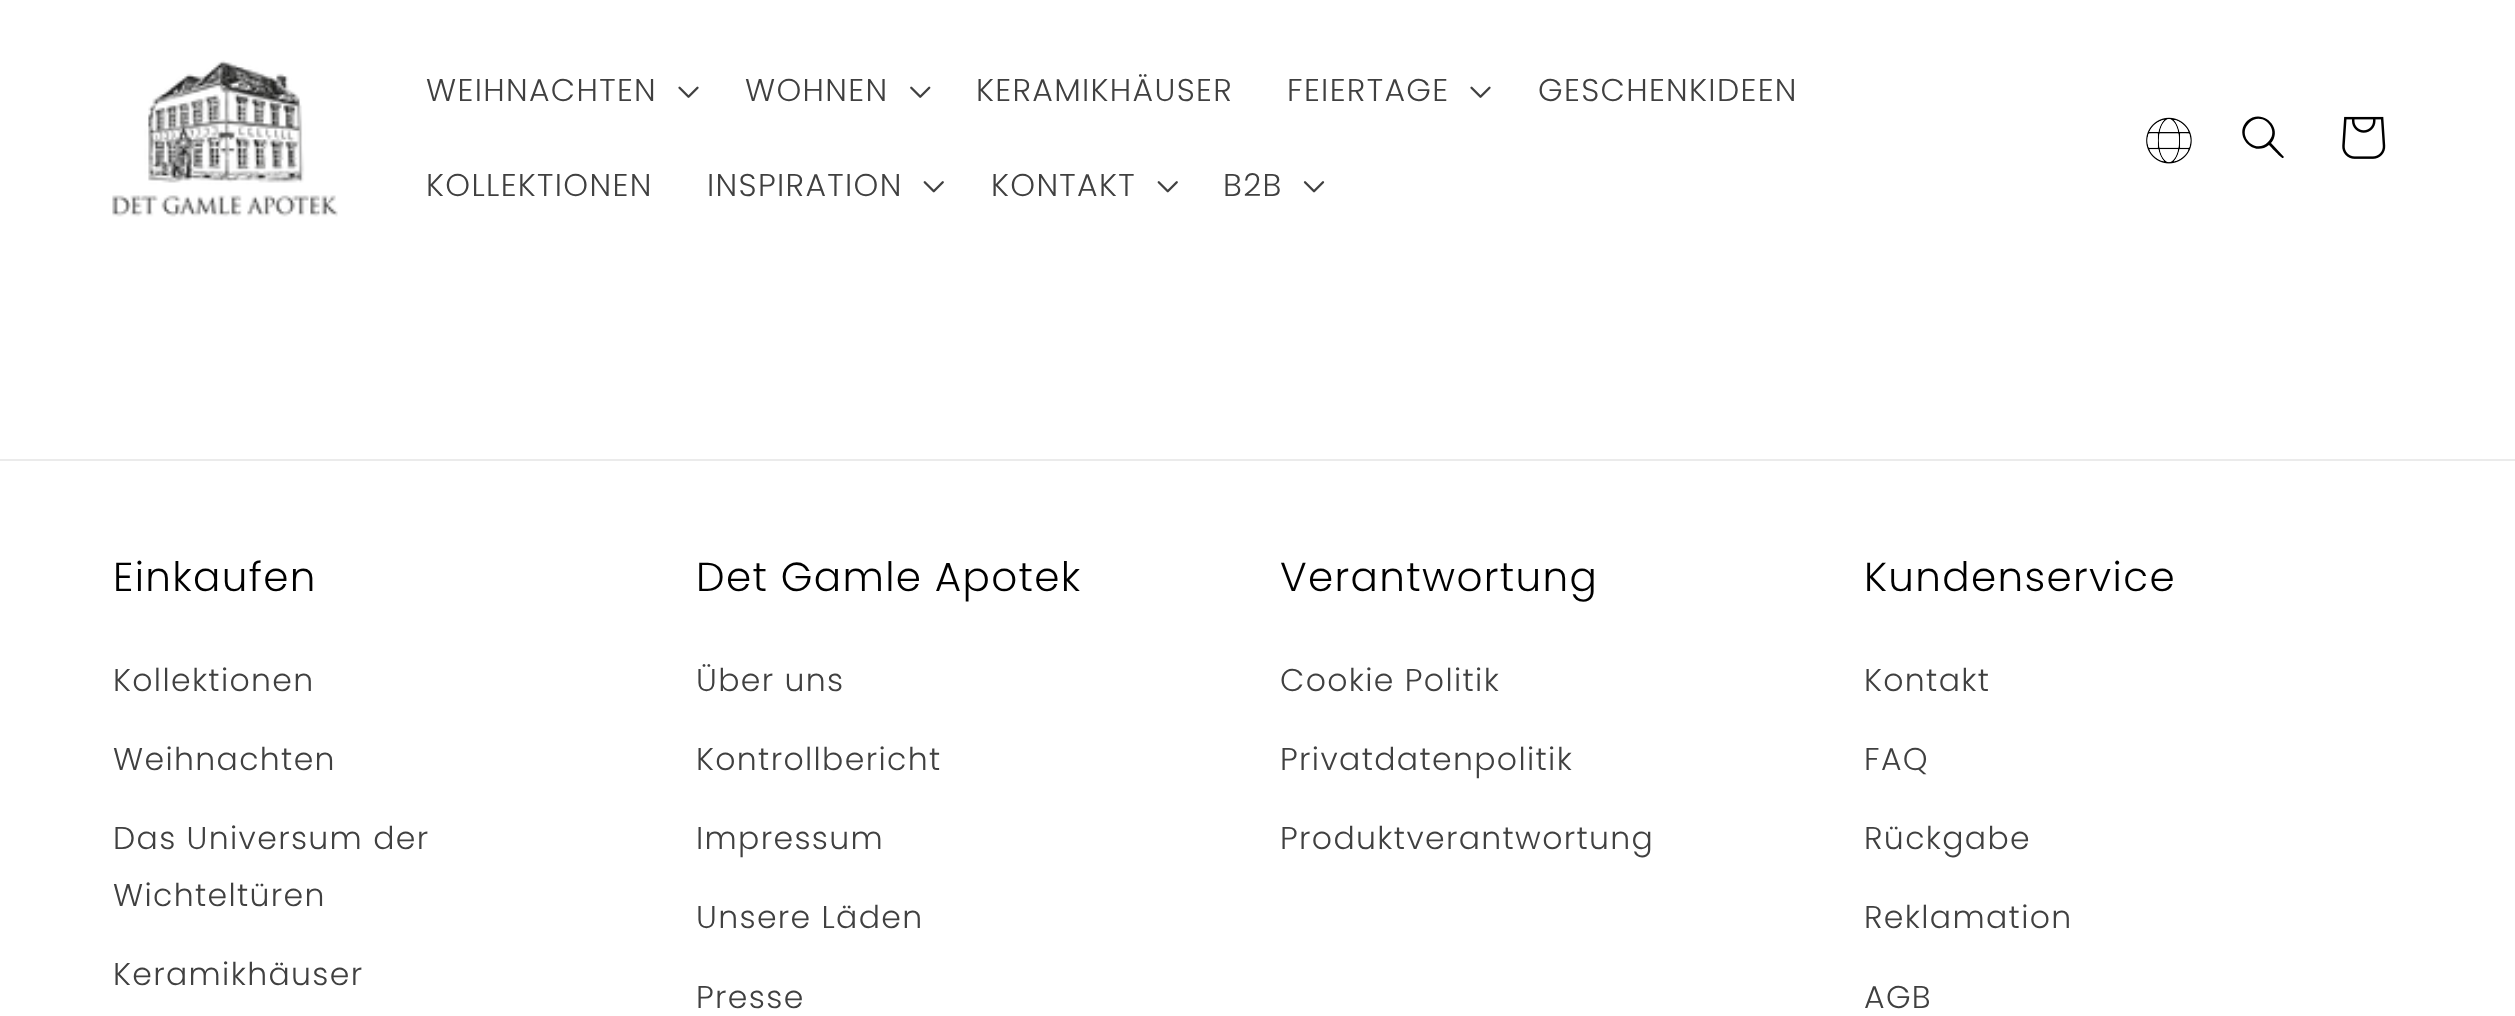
<!DOCTYPE html>
<meta charset="utf-8">
<style>body { margin: 0 } canvas { display: block }</style>
<canvas id="canvas" width="2515" height="1016"></canvas>
<img id="img1" src="img_01.png" hidden>
<img id="img2" src="img_02.png" hidden>
<img id="img3" src="img_03.png" hidden>
<img id="img4" src="img_04.png" hidden>
<img id="img5" src="img_05.png" hidden>
<img id="img6" src="img_06.png" hidden>
<img id="img7" src="img_07.png" hidden>
<script>
window.onload = function () {
	const canvas = document.getElementById("canvas");
	const ctx = canvas.getContext("2d");
	ctx.miterLimit = 4;
	ctx.fontKerning = "normal";
	function txt(s, x, y) {
		ctx.fillText(s, x, y);
	}
	function fill(x, y, w, h) {
		ctx.fillRect(x, y, w, h);
	}
	function img(id, x, y, w, h) {
		ctx.drawImage(document.getElementById(id), x, y, w, h);
	}

	ctx.fillStyle = "#FFFFFF";
	fill(0, 0, 2515, 1016);
	img("img1", 112, 60, 226, 157);
	img("img2", 678, 86, 21, 12);
	img("img3", 910, 86, 21, 12);
	img("img2", 1470, 86, 21, 12);
	img("img4", 923, 181, 21, 12);
	img("img4", 1157, 181, 21, 12);
	img("img5", 1303, 181, 22, 12);
	img("img6", 2146, 117, 46, 47);
	ctx.fillStyle = "#000000";
	ctx.beginPath();
	ctx.moveTo(2268, 142);
	ctx.bezierCurveTo(2256, 155, 2236, 136, 2249, 123);
	ctx.bezierCurveTo(2262, 110, 2281, 130, 2268, 142);
	ctx.closePath();
	ctx.moveTo(2269, 145);
	ctx.bezierCurveTo(2253, 158, 2233, 135, 2247, 121);
	ctx.bezierCurveTo(2262, 107, 2284, 128, 2271, 143);
	ctx.lineTo(2284, 157);
	ctx.lineTo(2283, 158);
	ctx.bezierCurveTo(2282, 159, 2271, 147, 2269, 145);
	ctx.closePath();
	ctx.fill("evenodd");
	img("img7", 2342, 116, 44, 43);
	ctx.fillStyle = "#EBEBEB";
	fill(0, 459, 2515, 2);
	ctx.letterSpacing = "1.35px";
	ctx.font = "300 31.5px Poppins";
	ctx.fillStyle = "#404040";
	txt("WEIHNACHTEN", 426, 101);
	txt("WOHNEN", 745, 101);
	txt("KERAMIKHÄUSER", 976, 101);
	txt("FEIERTAGE", 1287, 101);
	txt("GESCHENKIDEEN", 1538, 101);
	txt("KOLLEKTIONEN", 426, 196);
	txt("INSPIRATION", 707, 196);
	txt("KONTAKT", 991, 196);
	txt("B2B", 1223, 196);
	ctx.font = "300 40.5px Poppins";
	ctx.fillStyle = "#000000";
	txt("Einkaufen", 113, 591);
	ctx.font = "300 31.5px Poppins";
	ctx.fillStyle = "#404040";
	txt("Kollektionen", 113, 691);
	txt("Weihnachten", 113, 770);
	txt("Das Universum der", 113, 849);
	txt("Wichteltüren", 113, 906);
	txt("Keramikhäuser", 113, 985);
	ctx.font = "300 40.5px Poppins";
	ctx.fillStyle = "#000000";
	txt("Det Gamle Apotek", 696, 591);
	ctx.font = "300 31.5px Poppins";
	ctx.fillStyle = "#404040";
	txt("Über uns", 696, 691);
	txt("Kontrollbericht", 696, 770);
	txt("Impressum", 696, 849);
	txt("Unsere Läden", 696, 928);
	txt("Presse", 696, 1008);
	ctx.font = "300 40.5px Poppins";
	ctx.fillStyle = "#000000";
	txt("Verantwortung", 1280, 591);
	ctx.font = "300 31.5px Poppins";
	ctx.fillStyle = "#404040";
	txt("Cookie Politik", 1280, 691);
	txt("Privatdatenpolitik", 1280, 770);
	txt("Produktverantwortung", 1280, 849);
	ctx.font = "300 40.5px Poppins";
	ctx.fillStyle = "#000000";
	txt("Kundenservice", 1864, 591);
	ctx.font = "300 31.5px Poppins";
	ctx.fillStyle = "#404040";
	txt("Kontakt", 1864, 691);
	txt("FAQ", 1864, 770);
	txt("Rückgabe", 1864, 849);
	txt("Reklamation", 1864, 928);
	txt("AGB", 1864, 1008);
};
</script>
